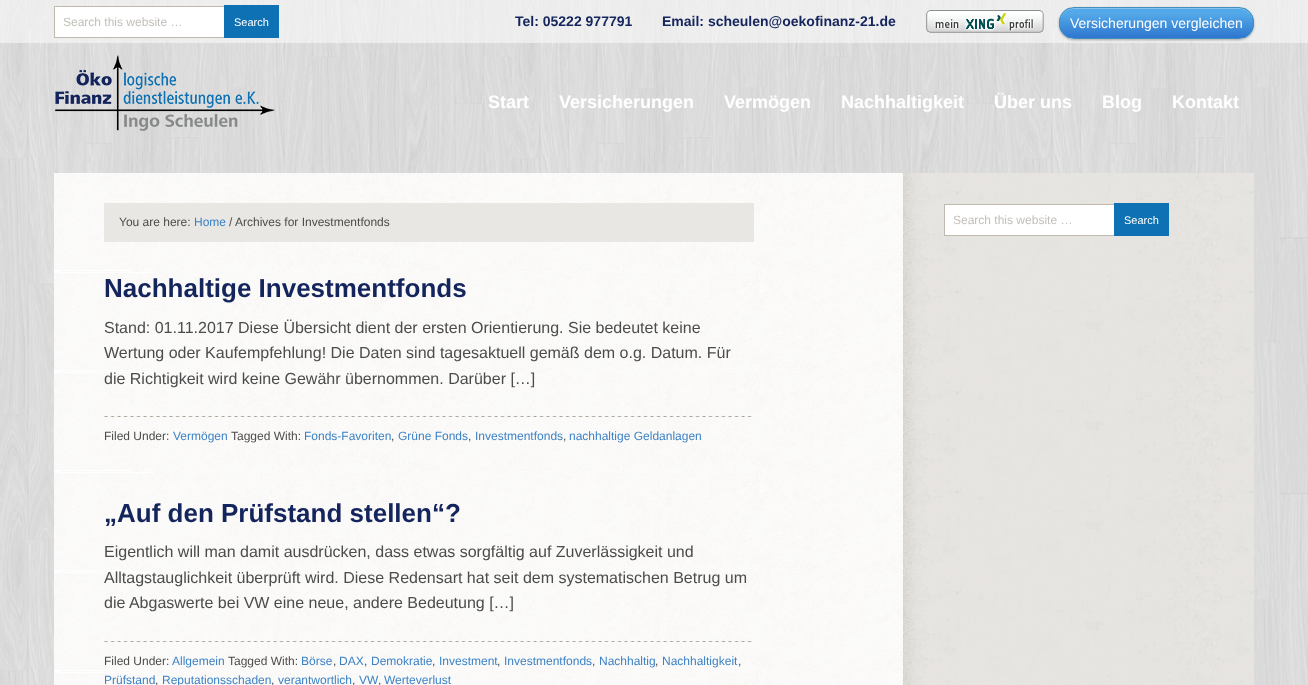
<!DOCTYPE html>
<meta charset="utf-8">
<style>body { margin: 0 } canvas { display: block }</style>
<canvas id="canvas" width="1308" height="685"></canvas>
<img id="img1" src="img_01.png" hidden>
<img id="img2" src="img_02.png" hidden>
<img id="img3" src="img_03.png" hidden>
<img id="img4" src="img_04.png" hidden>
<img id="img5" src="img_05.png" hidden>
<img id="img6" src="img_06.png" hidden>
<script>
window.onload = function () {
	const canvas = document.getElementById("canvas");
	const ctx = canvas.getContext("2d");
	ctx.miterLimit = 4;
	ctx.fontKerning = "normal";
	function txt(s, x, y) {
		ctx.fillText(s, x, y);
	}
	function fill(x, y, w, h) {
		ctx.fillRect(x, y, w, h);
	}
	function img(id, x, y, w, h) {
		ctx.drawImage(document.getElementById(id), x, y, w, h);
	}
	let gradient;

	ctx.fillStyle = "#FFFFFF";
	fill(0, 0, 1308, 685);
	img("img1", 0, 0, 1308, 685);
	ctx.fillStyle = "rgba(255, 255, 255, 0.5)";
	fill(0, 0, 1308, 43);
	ctx.fillStyle = "#FFFFFF";
	fill(55, 7, 169, 30);
	ctx.fillStyle = "#C0B9AF";
	fill(54, 6, 177, 1);
	fill(54, 37, 177, 1);
	fill(54, 6, 1, 32);
	ctx.fillStyle = "#0E71B4";
	fill(224, 5, 55, 33);
	img("img2", 926, 10, 118, 23);
	ctx.save();
	ctx.beginPath();
	ctx.moveTo(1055, 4);
	ctx.lineTo(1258, 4);
	ctx.lineTo(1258, 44);
	ctx.lineTo(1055, 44);
	ctx.closePath();
	ctx.moveTo(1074, 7);
	ctx.lineTo(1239, 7);
	ctx.bezierCurveTo(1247.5, 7, 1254, 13.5, 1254, 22);
	ctx.lineTo(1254, 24);
	ctx.bezierCurveTo(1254, 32.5, 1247.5, 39, 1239, 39);
	ctx.lineTo(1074, 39);
	ctx.bezierCurveTo(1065.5, 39, 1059, 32.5, 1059, 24);
	ctx.lineTo(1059, 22);
	ctx.bezierCurveTo(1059, 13.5, 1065.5, 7, 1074, 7);
	ctx.closePath();
	ctx.clip("evenodd");
	ctx.fillStyle = "rgba(0, 0, 0, 0.29)";
	ctx.filter = "blur(1px)";
	ctx.beginPath();
	ctx.roundRect(1059, 8, 195, 32, 15);
	ctx.fill();
	ctx.filter = "none";
	ctx.restore();
	ctx.save();
	ctx.beginPath();
	ctx.roundRect(1059, 7, 195, 32, 15);
	ctx.clip();
	gradient = ctx.createLinearGradient(1060, 8, 1060, 38);
	gradient.addColorStop(0.2, "#52A8E8");
	gradient.addColorStop(1, "#2E76CF");
	ctx.fillStyle = gradient;
	fill(1059, 8, 195, 30);
	ctx.restore();
	ctx.fillStyle = "rgba(255, 255, 255, 0.3)";
	ctx.beginPath();
	ctx.moveTo(1074, 9);
	ctx.lineTo(1239, 9);
	ctx.bezierCurveTo(1247, 9, 1253, 15, 1253, 23);
	ctx.bezierCurveTo(1253, 1, 1224, 8, 1212, 8);
	ctx.lineTo(1102, 8);
	ctx.bezierCurveTo(1089, 8, 1060, 1, 1060, 23);
	ctx.bezierCurveTo(1060, 15, 1066, 9, 1074, 9);
	ctx.closePath();
	ctx.fill();
	ctx.beginPath();
	ctx.roundRect(1059.5, 7.5, 194, 31, 14.5);
	ctx.strokeStyle = "#418FBC";
	ctx.stroke();
	img("img3", 55, 55, 220, 76);
	img("img4", 54, 173, 1200, 512);
	ctx.fillStyle = "#E8E7E3";
	fill(104, 203, 650, 39);
	img("img5", 104, 416, 649, 1);
	img("img6", 104, 641, 648, 1);
	ctx.fillStyle = "#FFFFFF";
	fill(945, 205, 169, 30);
	ctx.fillStyle = "#C0B9AF";
	fill(944, 204, 177, 1);
	fill(944, 235, 177, 1);
	fill(944, 204, 1, 32);
	ctx.fillStyle = "#0E71B4";
	fill(1114, 203, 55, 33);
	ctx.font = "12px Liberation Sans";
	ctx.fillStyle = "#C2BFB8";
	txt("Search this website …", 63, 26);
	ctx.font = "11px Liberation Sans";
	ctx.fillStyle = "#FFFFFF";
	txt("Search", 234, 26);
	ctx.font = "bold 14px Liberation Sans";
	ctx.fillStyle = "#14245C";
	txt("Tel: 05222 977791", 515, 26);
	txt("Email: scheulen@oekofinanz-21.de", 662, 26);
	ctx.font = "14px Liberation Sans";
	ctx.fillStyle = "#FFFFFF";
	txt("Versicherungen vergleichen", 1070, 28);
	ctx.font = "bold 18px Liberation Sans";
	txt("Start", 488, 108);
	txt("Versicherungen", 559, 108);
	txt("Vermögen", 724, 108);
	txt("Nachhaltigkeit", 841, 108);
	txt("Über uns", 994, 108);
	txt("Blog", 1102, 108);
	txt("Kontakt", 1172, 108);
	ctx.font = "12px Liberation Sans";
	ctx.fillStyle = "#4C4C4C";
	txt("You are here:", 119, 226);
	ctx.fillStyle = "#3B82C7";
	txt("Home", 194, 226);
	ctx.fillStyle = "#4C4C4C";
	txt("/", 229, 226);
	txt("Archives for Investmentfonds", 235, 226);
	ctx.font = "bold 26px Liberation Sans";
	ctx.fillStyle = "#14245C";
	txt("Nachhaltige Investmentfonds", 104, 297);
	ctx.font = "16px Liberation Sans";
	ctx.fillStyle = "#4C4C4C";
	txt("Stand: 01.11.2017 Diese Übersicht dient der ersten Orientierung. Sie bedeutet keine", 104, 333);
	txt("Wertung oder Kaufempfehlung! Die Daten sind tagesaktuell gemäß dem o.g. Datum. Für", 104, 358);
	txt("die Richtigkeit wird keine Gewähr übernommen. Darüber […]", 104, 384);
	ctx.font = "12px Liberation Sans";
	txt("Filed Under:", 104, 440);
	ctx.fillStyle = "#3B82C7";
	txt("Vermögen", 173, 440);
	ctx.fillStyle = "#4C4C4C";
	txt("Tagged With:", 231, 440);
	ctx.fillStyle = "#3B82C7";
	txt("Fonds-Favoriten", 304, 440);
	ctx.fillStyle = "#4C4C4C";
	txt(",", 391, 440);
	ctx.fillStyle = "#3B82C7";
	txt("Grüne Fonds", 398, 440);
	ctx.fillStyle = "#4C4C4C";
	txt(",", 468, 440);
	ctx.fillStyle = "#3B82C7";
	txt("Investmentfonds", 475, 440);
	ctx.fillStyle = "#4C4C4C";
	txt(",", 563, 440);
	ctx.fillStyle = "#3B82C7";
	txt("nachhaltige Geldanlagen", 569, 440);
	ctx.font = "bold 26px Liberation Sans";
	ctx.fillStyle = "#14245C";
	txt("„Auf den Prüfstand stellen“?", 104, 522);
	ctx.font = "16px Liberation Sans";
	ctx.fillStyle = "#4C4C4C";
	txt("Eigentlich will man damit ausdrücken, dass etwas sorgfältig auf Zuverlässigkeit und", 104, 557);
	txt("Alltagstauglichkeit überprüft wird. Diese Redensart hat seit dem systematischen Betrug um", 104, 583);
	txt("die Abgaswerte bei VW eine neue, andere Bedeutung […]", 104, 608);
	ctx.font = "12px Liberation Sans";
	txt("Filed Under:", 104, 665);
	ctx.fillStyle = "#3B82C7";
	txt("Allgemein", 172, 665);
	ctx.fillStyle = "#4C4C4C";
	txt("Tagged With:", 228, 665);
	ctx.fillStyle = "#3B82C7";
	txt("Börse", 301, 665);
	ctx.fillStyle = "#4C4C4C";
	txt(",", 333, 665);
	ctx.fillStyle = "#3B82C7";
	txt("DAX", 339, 665);
	ctx.fillStyle = "#4C4C4C";
	txt(",", 364, 665);
	ctx.fillStyle = "#3B82C7";
	txt("Demokratie", 371, 665);
	ctx.fillStyle = "#4C4C4C";
	txt(",", 432, 665);
	ctx.fillStyle = "#3B82C7";
	txt("Investment", 439, 665);
	ctx.fillStyle = "#4C4C4C";
	txt(",", 497, 665);
	ctx.fillStyle = "#3B82C7";
	txt("Investmentfonds", 504, 665);
	ctx.fillStyle = "#4C4C4C";
	txt(",", 592, 665);
	ctx.fillStyle = "#3B82C7";
	txt("Nachhaltig", 599, 665);
	ctx.fillStyle = "#4C4C4C";
	txt(",", 655, 665);
	ctx.fillStyle = "#3B82C7";
	txt("Nachhaltigkeit", 662, 665);
	ctx.fillStyle = "#4C4C4C";
	txt(",", 738, 665);
	ctx.fillStyle = "#3B82C7";
	txt("Prüfstand", 104, 684);
	ctx.fillStyle = "#4C4C4C";
	txt(",", 155, 684);
	ctx.fillStyle = "#3B82C7";
	txt("Reputationsschaden", 162, 684);
	ctx.fillStyle = "#4C4C4C";
	txt(",", 271, 684);
	ctx.fillStyle = "#3B82C7";
	txt("verantwortlich", 278, 684);
	ctx.fillStyle = "#4C4C4C";
	txt(",", 352, 684);
	ctx.fillStyle = "#3B82C7";
	txt("VW", 359, 684);
	txt("Werteverlust", 384, 684);
	ctx.fillStyle = "#4C4C4C";
	txt(",", 378, 684);
	ctx.fillStyle = "#C2BFB8";
	txt("Search this website …", 953, 224);
	ctx.font = "11px Liberation Sans";
	ctx.fillStyle = "#FFFFFF";
	txt("Search", 1124, 224);
};
</script>
